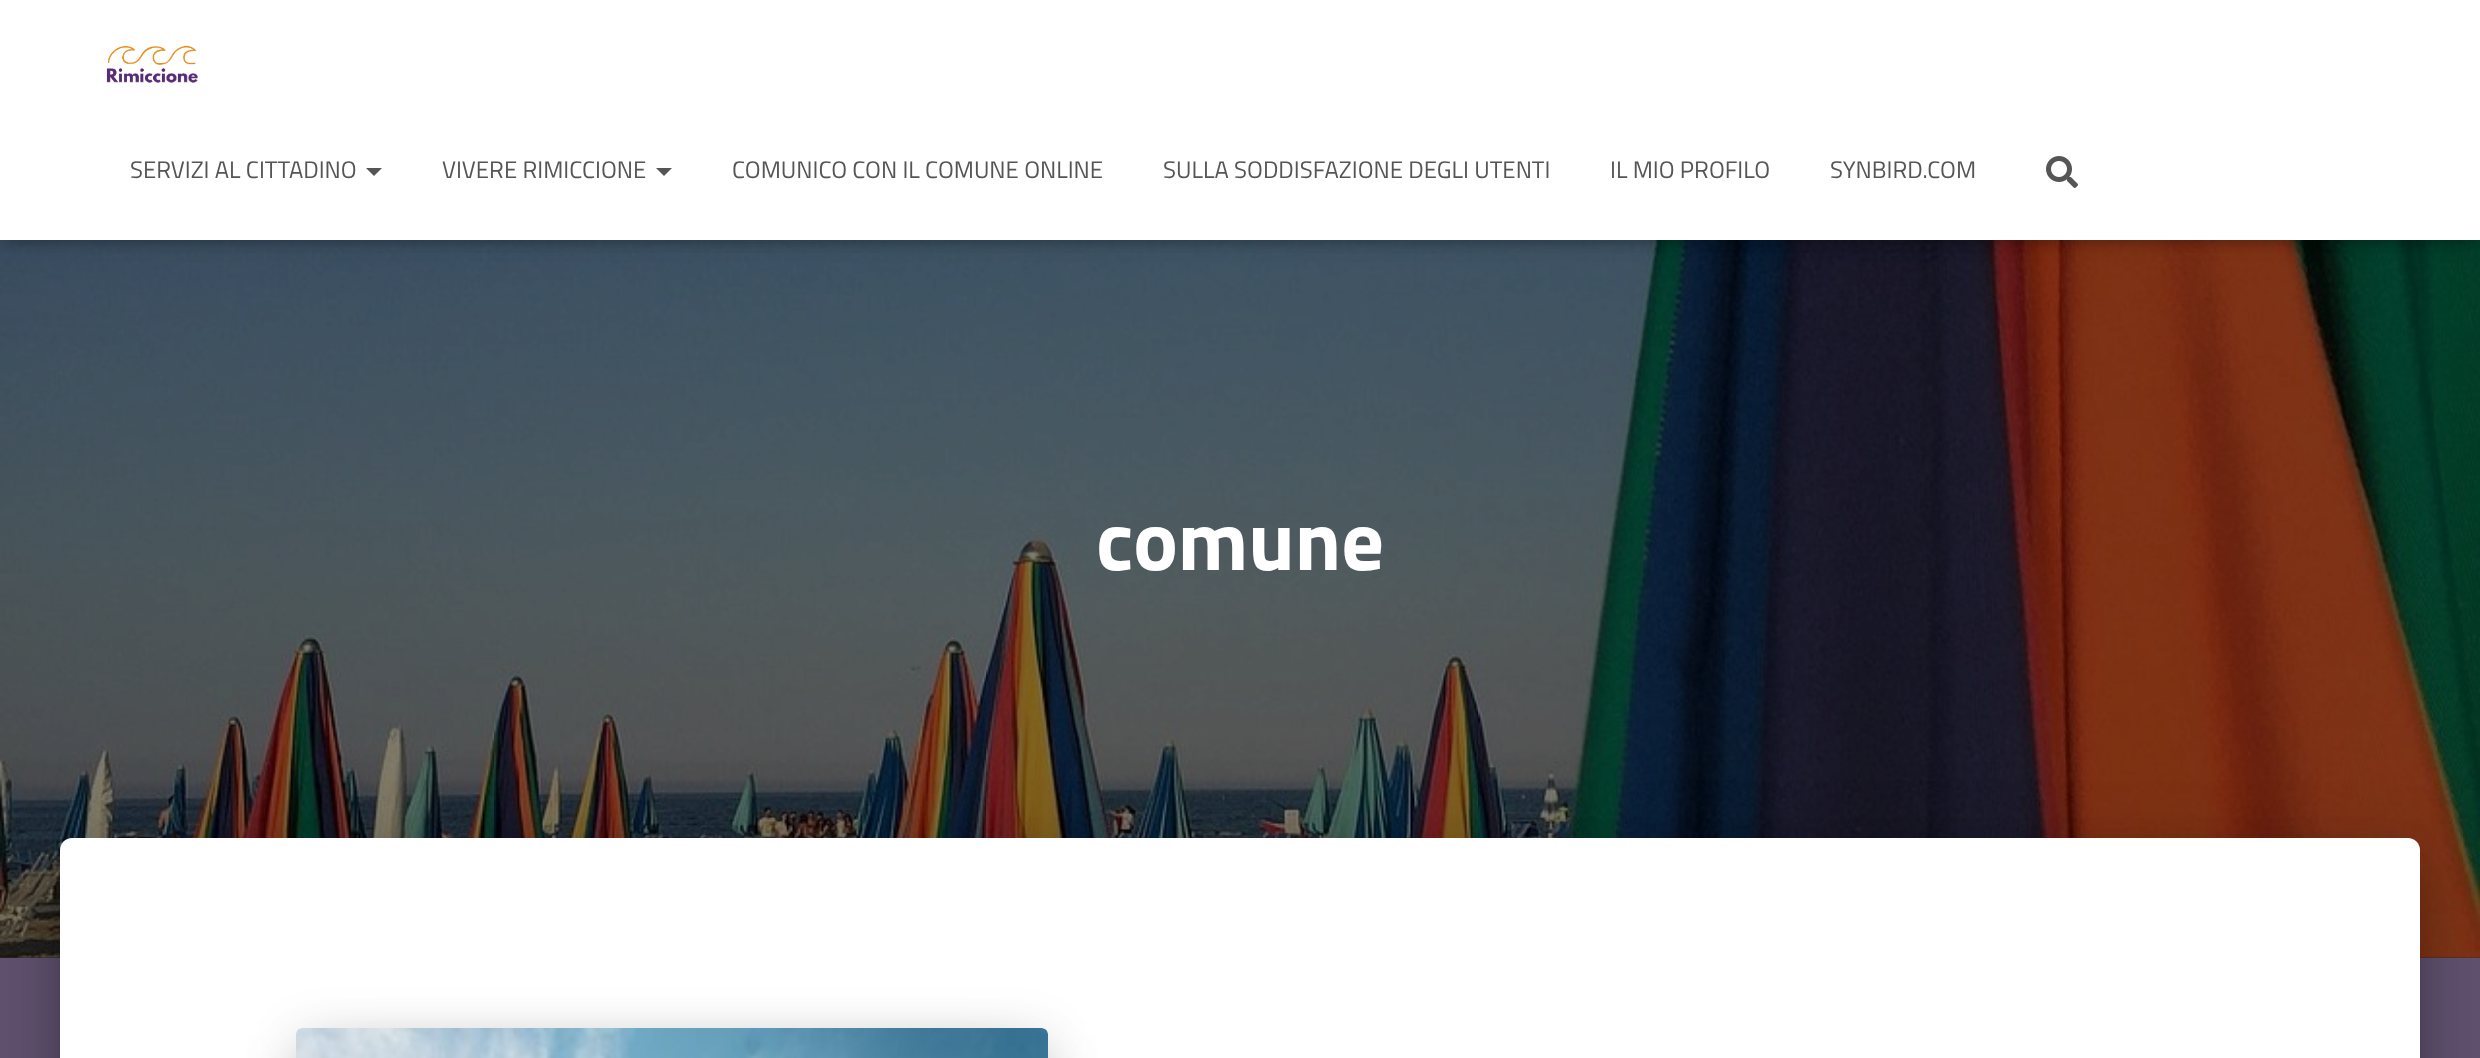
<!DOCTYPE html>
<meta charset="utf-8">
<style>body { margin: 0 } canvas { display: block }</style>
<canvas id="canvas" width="2480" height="1058"></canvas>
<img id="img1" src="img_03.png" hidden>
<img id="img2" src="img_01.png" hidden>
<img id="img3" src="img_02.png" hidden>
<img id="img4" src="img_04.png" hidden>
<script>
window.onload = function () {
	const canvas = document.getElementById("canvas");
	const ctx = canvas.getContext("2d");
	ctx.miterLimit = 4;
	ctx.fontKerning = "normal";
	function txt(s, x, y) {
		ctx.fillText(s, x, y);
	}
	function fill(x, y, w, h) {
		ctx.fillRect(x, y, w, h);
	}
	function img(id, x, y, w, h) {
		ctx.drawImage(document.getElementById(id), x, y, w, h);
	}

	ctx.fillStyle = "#60516F";
	fill(0, 0, 2480, 1058);
	ctx.fillStyle = "#302938";
	fill(0, 956, 2480, 2);
	img("img1", 0, 240, 2480, 718);
	ctx.fillStyle = "rgba(0, 0, 0, 0.1)";
	ctx.filter = "blur(5px)";
	ctx.beginPath();
	ctx.rect(4, 12, 2472, 232);
	ctx.fill();
	ctx.filter = "none";
	ctx.fillStyle = "rgba(0, 0, 0, 0.12)";
	ctx.filter = "blur(10px)";
	ctx.beginPath();
	ctx.rect(0, 2, 2480, 240);
	ctx.fill();
	ctx.filter = "none";
	ctx.fillStyle = "rgba(0, 0, 0, 0.42)";
	ctx.filter = "blur(10px)";
	ctx.beginPath();
	ctx.rect(12, 14, 2456, 216);
	ctx.fill();
	ctx.filter = "none";
	ctx.fillStyle = "#FFFFFF";
	fill(0, 0, 2480, 240);
	img("img2", 106, 45, 92, 38);
	ctx.fillStyle = "#555555";
	ctx.beginPath();
	ctx.moveTo(366, 168);
	ctx.lineTo(382, 168);
	ctx.lineTo(374, 176);
	ctx.closePath();
	ctx.fill();
	ctx.beginPath();
	ctx.moveTo(656, 168);
	ctx.lineTo(672, 168);
	ctx.lineTo(664, 176);
	ctx.closePath();
	ctx.fill();
	img("img3", 2046, 156, 32, 32);
	ctx.fillStyle = "rgba(0, 0, 0, 0.2)";
	ctx.filter = "blur(10px)";
	ctx.beginPath();
	ctx.roundRect(70, 864, 2340, 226, 2);
	ctx.fill();
	ctx.filter = "none";
	ctx.fillStyle = "rgba(0, 0, 0, 0.12)";
	ctx.filter = "blur(30px)";
	ctx.beginPath();
	ctx.roundRect(50, 840, 2380, 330, 22);
	ctx.fill();
	ctx.filter = "none";
	ctx.fillStyle = "rgba(0, 0, 0, 0.14)";
	ctx.filter = "blur(24px)";
	ctx.beginPath();
	ctx.roundRect(56, 866, 2368, 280, 16);
	ctx.fill();
	ctx.filter = "none";
	ctx.fillStyle = "#FFFFFF";
	ctx.beginPath();
	ctx.moveTo(72, 838);
	ctx.lineTo(2408, 838);
	ctx.bezierCurveTo(2414.5, 838, 2420, 843.5, 2420, 850);
	ctx.lineTo(2420, 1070);
	ctx.lineTo(60, 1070);
	ctx.lineTo(60, 850);
	ctx.bezierCurveTo(60, 843.5, 65.5, 838, 72, 838);
	ctx.closePath();
	ctx.fill();
	ctx.fillStyle = "rgba(0, 0, 0, 0.12)";
	ctx.filter = "blur(25px)";
	ctx.beginPath();
	ctx.roundRect(296, 1036, 752, 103, 6);
	ctx.fill();
	ctx.filter = "none";
	ctx.fillStyle = "rgba(0, 0, 0, 0.56)";
	ctx.filter = "blur(38px)";
	ctx.beginPath();
	ctx.rect(320, 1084, 704, 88);
	ctx.fill();
	ctx.filter = "none";
	img("img4", 296, 1028, 752, 30);
	ctx.font = "24px Titillium Web";
	ctx.fillStyle = "#555555";
	txt("SERVIZI AL CITTADINO", 130, 178);
	txt("VIVERE RIMICCIONE", 442, 178);
	txt("COMUNICO CON IL COMUNE ONLINE", 732, 178);
	txt("SULLA SODDISFAZIONE DEGLI UTENTI", 1163, 178);
	txt("IL MIO PROFILO", 1610, 178);
	txt("SYNBIRD.COM", 1830, 178);
	ctx.font = "bold 84px Titillium Web";
	ctx.fillStyle = "#FFFFFF";
	txt("comune", 1096, 570);
};
</script>
